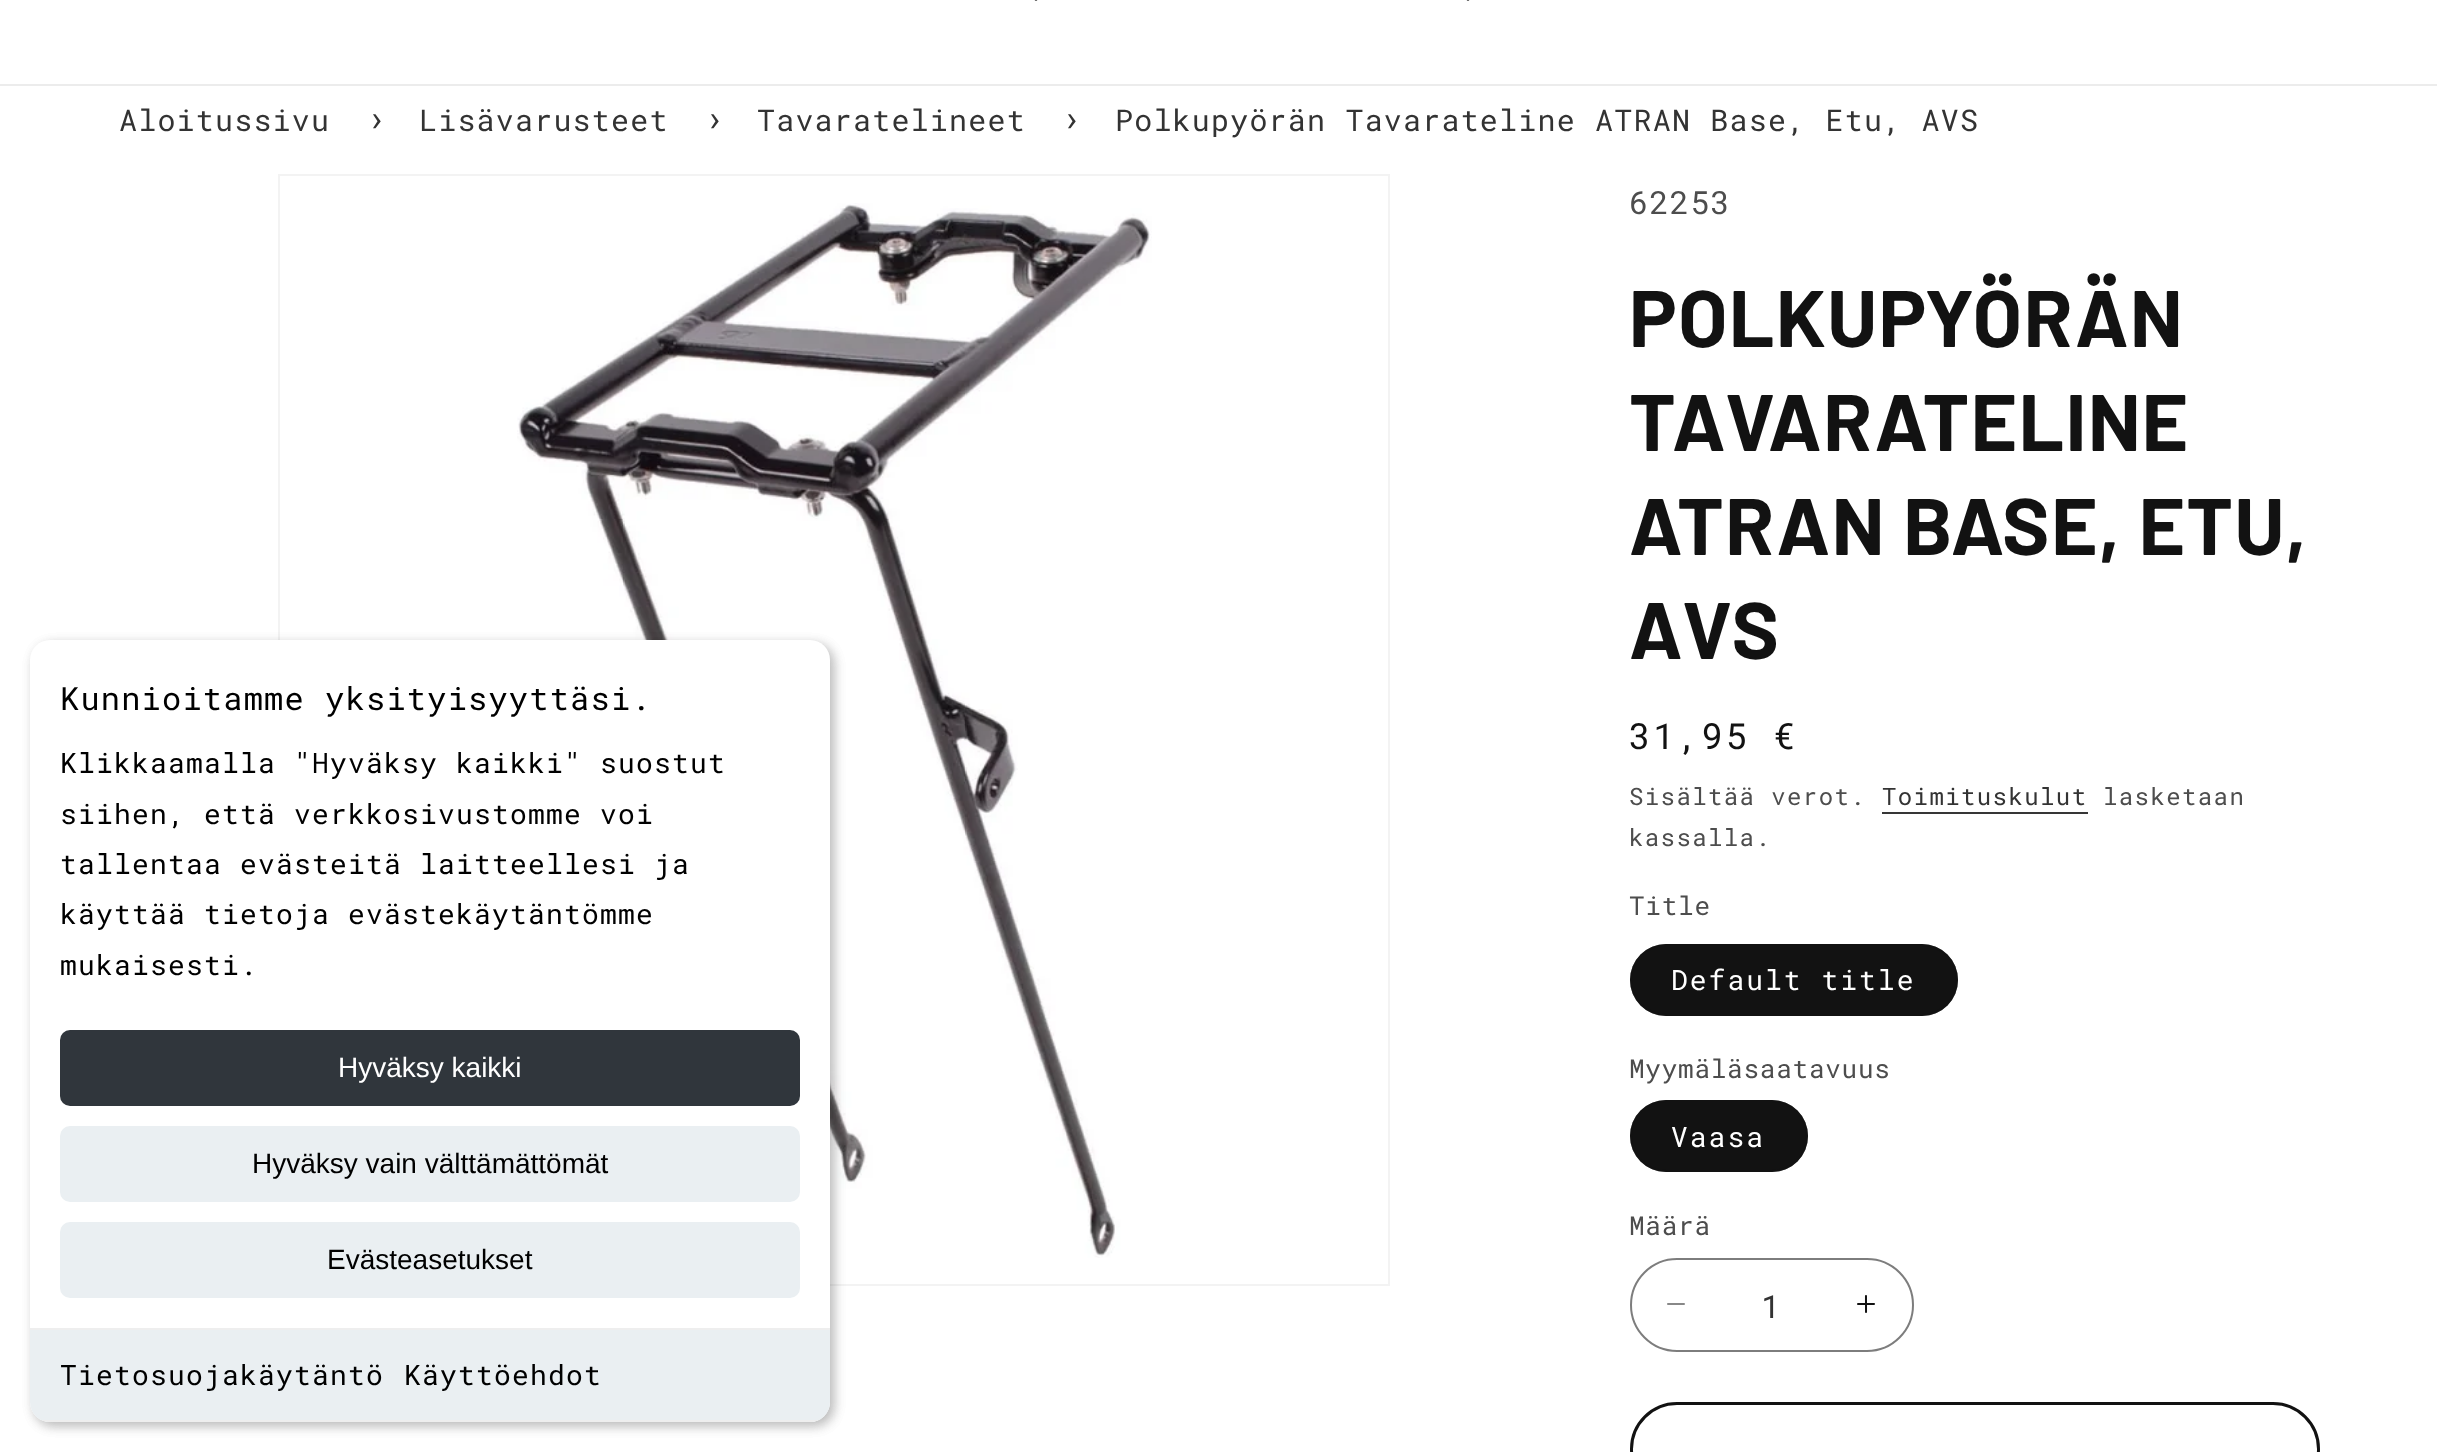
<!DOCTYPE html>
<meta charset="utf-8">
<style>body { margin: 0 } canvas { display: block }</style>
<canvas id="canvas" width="2437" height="1452"></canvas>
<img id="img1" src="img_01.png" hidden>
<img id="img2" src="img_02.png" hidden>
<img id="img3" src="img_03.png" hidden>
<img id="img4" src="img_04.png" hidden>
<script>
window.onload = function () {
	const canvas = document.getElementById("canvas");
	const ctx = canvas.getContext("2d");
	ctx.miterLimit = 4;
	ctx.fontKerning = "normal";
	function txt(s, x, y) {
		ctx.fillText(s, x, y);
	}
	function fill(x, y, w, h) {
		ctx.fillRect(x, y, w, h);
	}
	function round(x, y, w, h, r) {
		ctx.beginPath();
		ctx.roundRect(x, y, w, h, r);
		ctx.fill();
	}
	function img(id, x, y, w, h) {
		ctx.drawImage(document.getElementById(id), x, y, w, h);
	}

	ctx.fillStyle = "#FFFFFF";
	fill(0, 0, 2437, 1452);
	ctx.fillStyle = "#ECECEC";
	fill(0, 84, 2437, 2);
	img("img1", 1034, 0, 4, 1);
	img("img1", 1466, 0, 4, 1);
	ctx.strokeStyle = "#F3F3F3";
	ctx.lineWidth = 2;
	ctx.strokeRect(279, 175, 1110, 1110);
	img("img2", 517, 203, 635, 1055);
	ctx.fillStyle = "#363636";
	fill(1882, 812, 206, 2);
	ctx.fillStyle = "#121212";
	round(1630, 944, 328, 72, 36);
	ctx.beginPath();
	ctx.roundRect(1631, 945, 326, 70, 35);
	ctx.strokeStyle = "rgba(18, 18, 18, 0.55)";
	ctx.stroke();
	round(1630, 1100, 178, 72, 36);
	ctx.beginPath();
	ctx.roundRect(1631, 1101, 176, 70, 35);
	ctx.stroke();
	img("img3", 1667, 1303, 18, 2);
	img("img4", 1857, 1295, 18, 18);
	ctx.beginPath();
	ctx.roundRect(1631, 1259, 282, 92, 46);
	ctx.strokeStyle = "#7D7D7D";
	ctx.stroke();
	ctx.beginPath();
	ctx.roundRect(1631.5, 1403.5, 687, 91, 45.5);
	ctx.strokeStyle = "#121212";
	ctx.lineWidth = 3;
	ctx.stroke();
	ctx.fillStyle = "rgba(0, 0, 0, 0.15)";
	ctx.filter = "blur(6px)";
	ctx.beginPath();
	ctx.roundRect(34, 644, 800, 782, 20);
	ctx.fill();
	ctx.filter = "none";
	ctx.filter = "blur(6px)";
	ctx.beginPath();
	ctx.roundRect(34, 644, 800, 782, 20);
	ctx.fill();
	ctx.filter = "none";
	ctx.fillStyle = "#FFFFFF";
	round(30, 640, 800, 782, 20);
	ctx.fillStyle = "#30363C";
	round(60, 1030, 740, 76, 10);
	ctx.fillStyle = "#EAEFF2";
	round(60, 1126, 740, 76, 10);
	round(60, 1222, 740, 76, 10);
	ctx.beginPath();
	ctx.roundRect(30, 1328, 800, 94, [0, 0, 20, 20]);
	ctx.fill();
	ctx.fillStyle = "#EEEEEE";
	fill(30, 1328, 800, 2);
	ctx.save();
	ctx.beginPath();
	ctx.roundRect(30, 640, 800, 782, 20);
	ctx.clip();
	fill(41, 1420, 778, 2);
	ctx.restore();
	ctx.letterSpacing = "1.2px";
	ctx.font = "30px roboto mono";
	ctx.fillStyle = "#333333";
	txt("Aloitussivu", 119, 131);
	ctx.font = "36px roboto mono";
	txt("›", 366, 131);
	ctx.font = "30px roboto mono";
	txt("Lisävarusteet", 419, 131);
	ctx.font = "36px roboto mono";
	txt("›", 704, 131);
	ctx.font = "30px roboto mono";
	txt("Tavaratelineet", 757, 131);
	ctx.font = "36px roboto mono";
	txt("›", 1061, 131);
	ctx.font = "30px roboto mono";
	txt("Polkupyörän Tavarateline ATRAN Base, Etu, AVS", 1115, 131);
	ctx.font = "32px roboto mono";
	ctx.fillStyle = "#4D4D4D";
	txt("62253", 1629, 214);
	ctx.font = "bold 80px barlow";
	ctx.fillStyle = "#121212";
	txt("POLKUPYÖRÄN", 1629, 347);
	txt("TAVARATELINE", 1629, 451);
	txt("ATRAN BASE, ETU,", 1629, 555);
	txt("AVS", 1629, 659);
	ctx.letterSpacing = "2.5px";
	ctx.font = "36px roboto mono";
	txt("31,95 €", 1629, 749);
	ctx.letterSpacing = "1.4px";
	ctx.font = "24px roboto mono";
	ctx.fillStyle = "#4D4D4D";
	txt("Sisältää verot.", 1629, 805);
	ctx.fillStyle = "#333333";
	txt("Toimituskulut", 1882, 805);
	ctx.fillStyle = "#4D4D4D";
	txt("lasketaan", 2103, 805);
	txt("kassalla.", 1629, 846);
	ctx.letterSpacing = "0.75px";
	ctx.font = "26px roboto mono";
	txt("Title", 1629, 915);
	ctx.letterSpacing = "2px";
	ctx.font = "28px roboto mono";
	ctx.fillStyle = "#FFFFFF";
	txt("Default title", 1671, 990);
	ctx.letterSpacing = "0.75px";
	ctx.font = "26px roboto mono";
	ctx.fillStyle = "#4D4D4D";
	txt("Myymäläsaatavuus", 1629, 1078);
	ctx.letterSpacing = "2px";
	ctx.font = "28px roboto mono";
	ctx.fillStyle = "#FFFFFF";
	txt("Vaasa", 1671, 1147);
	ctx.letterSpacing = "0.75px";
	ctx.font = "26px roboto mono";
	ctx.fillStyle = "#4D4D4D";
	txt("Määrä", 1629, 1235);
	ctx.letterSpacing = "0px";
	ctx.font = "32px roboto mono";
	ctx.fillStyle = "#333333";
	txt("1", 1761, 1318);
	ctx.letterSpacing = "1.2px";
	ctx.fillStyle = "#000000";
	txt("Kunnioitamme yksityisyyttäsi.", 60, 710);
	ctx.font = "28px roboto mono";
	txt("Klikkaamalla \"Hyväksy kaikki\" suostut", 60, 773);
	txt("siihen, että verkkosivustomme voi", 60, 824);
	txt("tallentaa evästeitä laitteellesi ja", 60, 874);
	txt("käyttää tietoja evästekäytäntömme", 60, 924);
	txt("mukaisesti.", 60, 975);
	ctx.letterSpacing = "0px";
	ctx.font = "28px Liberation Sans";
	ctx.fillStyle = "#FFFFFF";
	txt("Hyväksy kaikki", 338, 1077);
	ctx.fillStyle = "#000000";
	txt("Hyväksy vain välttämättömät", 252, 1173);
	txt("Evästeasetukset", 327, 1269);
	ctx.letterSpacing = "1.2px";
	ctx.font = "28px roboto mono";
	txt("Tietosuojakäytäntö", 60, 1385);
	txt("Käyttöehdot", 404, 1385);
};
</script>
